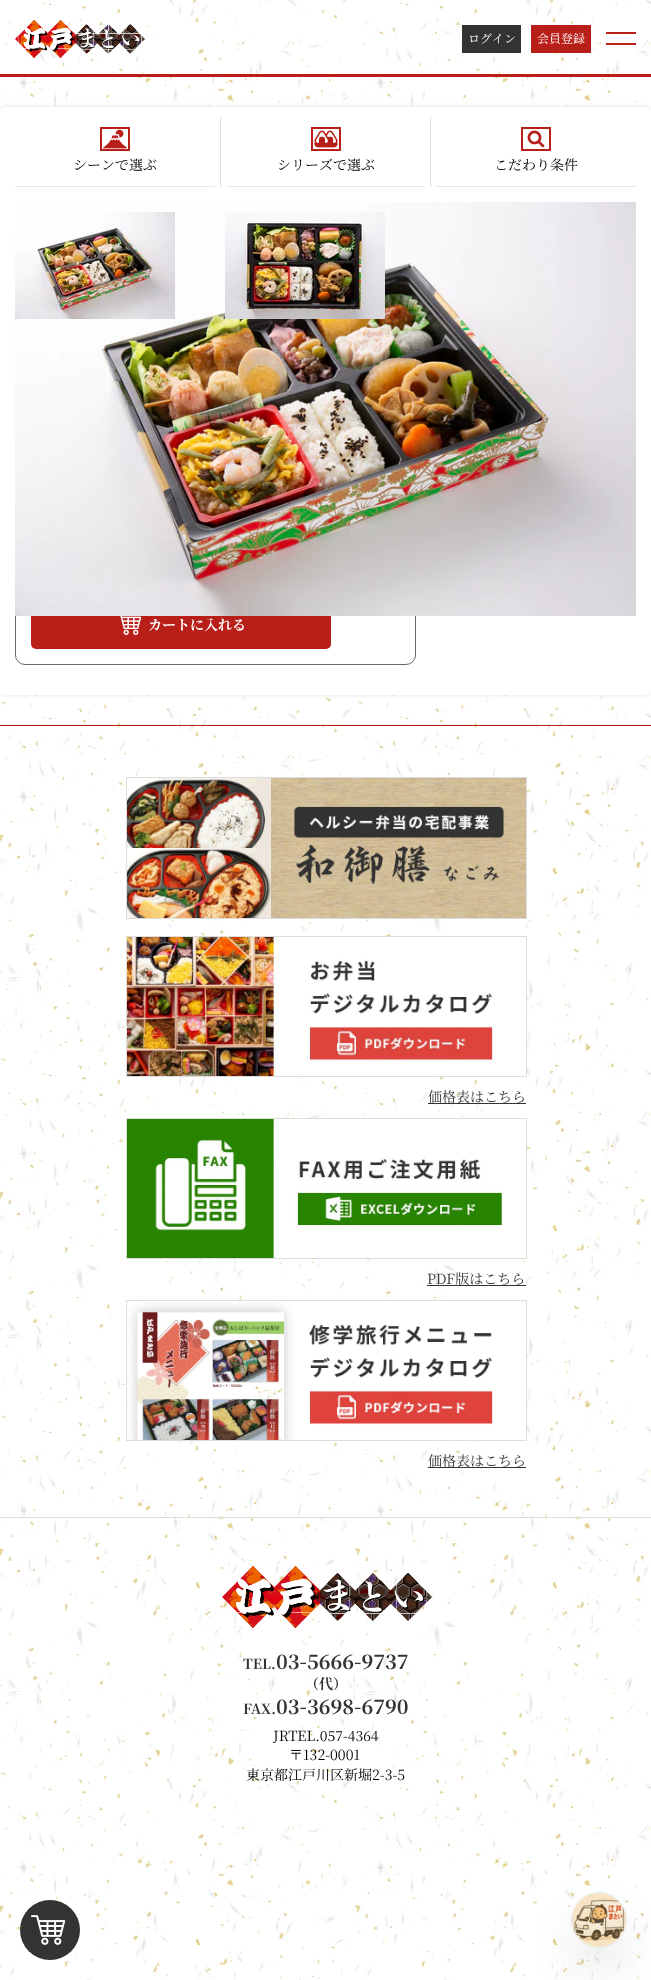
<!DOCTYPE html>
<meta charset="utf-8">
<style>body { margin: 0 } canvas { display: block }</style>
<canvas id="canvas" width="651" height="1980"></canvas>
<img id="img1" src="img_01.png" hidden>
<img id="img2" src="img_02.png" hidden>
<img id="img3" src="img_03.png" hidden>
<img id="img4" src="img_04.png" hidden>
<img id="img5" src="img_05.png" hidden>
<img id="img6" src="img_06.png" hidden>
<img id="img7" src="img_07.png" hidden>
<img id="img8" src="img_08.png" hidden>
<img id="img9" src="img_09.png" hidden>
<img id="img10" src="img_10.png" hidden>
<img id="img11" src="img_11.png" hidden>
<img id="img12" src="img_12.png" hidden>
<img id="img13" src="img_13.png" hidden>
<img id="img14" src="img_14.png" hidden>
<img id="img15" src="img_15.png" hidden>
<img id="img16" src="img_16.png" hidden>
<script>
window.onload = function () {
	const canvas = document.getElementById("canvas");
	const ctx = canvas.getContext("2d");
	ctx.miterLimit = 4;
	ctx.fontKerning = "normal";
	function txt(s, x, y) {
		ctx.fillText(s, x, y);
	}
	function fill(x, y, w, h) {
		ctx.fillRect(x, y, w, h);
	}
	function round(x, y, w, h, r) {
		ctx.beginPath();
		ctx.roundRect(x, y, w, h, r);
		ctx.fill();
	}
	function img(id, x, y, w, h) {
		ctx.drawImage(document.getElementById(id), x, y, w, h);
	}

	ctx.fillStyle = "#FFFFFF";
	fill(0, 0, 651, 1980);
	img("img1", 0, 0, 651, 1980);
	ctx.fillStyle = "#B81F18";
	fill(0, 74, 651, 3);
	img("img2", 15, 20, 130, 38);
	ctx.fillStyle = "#333333";
	fill(462, 25, 59, 28);
	ctx.fillStyle = "#B81F18";
	fill(531, 25, 60, 28);
	ctx.fillStyle = "#333333";
	ctx.beginPath();
	ctx.arc(50, 1930, 30, 0, Math.PI * 2);
	ctx.fill();
	img("img3", 31, 1915, 35, 30);
	ctx.fillStyle = "#B81F18";
	fill(606, 32, 30, 2);
	fill(606, 43, 30, 2);
	ctx.fillStyle = "rgba(0, 0, 0, 0.1)";
	ctx.filter = "blur(2.5px)";
	ctx.beginPath();
	ctx.roundRect(0, 107, 651, 588, 5);
	ctx.fill();
	ctx.filter = "none";
	ctx.fillStyle = "#FFFFFF";
	round(0, 107, 651, 588, 5);
	ctx.fillStyle = "#E8E8E8";
	fill(15, 186, 200, 1);
	img("img4", 100, 127, 30, 24);
	ctx.fillStyle = "#DDDDDD";
	fill(430, 117, 1, 70);
	fill(220, 117, 1, 70);
	ctx.fillStyle = "#E8E8E8";
	fill(226, 186, 199, 1);
	img("img5", 311, 127, 30, 24);
	fill(436, 186, 200, 1);
	img("img6", 521, 127, 30, 24);
	ctx.beginPath();
	ctx.roundRect(15.5, 523.5, 400, 141, 9.5);
	ctx.strokeStyle = "#666666";
	ctx.stroke();
	ctx.fillStyle = "#B81F18";
	round(31, 599, 300, 50, 5);
	img("img7", 15, 202, 621, 414);
	img("img8", 15, 212, 160, 107);
	img("img9", 225, 212, 160, 107);
	img("img10", 120, 616, 21, 19);
	fill(0, 725, 651, 1);
	ctx.fillStyle = "#DDDDDD";
	fill(0, 1517, 651, 1);
	ctx.strokeStyle = "#DDDDDD";
	ctx.strokeRect(126.5, 777.5, 400, 141);
	img("img11", 127, 778, 399, 140);
	ctx.strokeRect(126.5, 936.5, 400, 140);
	img("img12", 127, 937, 399, 139);
	ctx.fillStyle = "#333333";
	fill(428, 1103, 98, 1);
	ctx.strokeRect(126.5, 1118.5, 400, 140);
	img("img13", 127, 1119, 399, 139);
	fill(427, 1285, 99, 1);
	ctx.strokeRect(126.5, 1300.5, 400, 140);
	img("img14", 127, 1301, 399, 139);
	fill(428, 1467, 98, 1);
	img("img15", 222, 1566, 210, 62);
	ctx.fillStyle = "rgba(0, 0, 0, 0.25)";
	ctx.filter = "blur(25px)";
	ctx.beginPath();
	ctx.roundRect(583, 1929, 32, 32, 16);
	ctx.fill();
	ctx.filter = "none";
	ctx.beginPath();
	ctx.arc(599, 1920, 27.5, 0, Math.PI * 2);
	ctx.strokeStyle = "#E2E8F0";
	ctx.stroke();
	ctx.fillStyle = "#FFFFFF";
	ctx.beginPath();
	ctx.arc(599, 1920, 27, 0, Math.PI * 2);
	ctx.fill();
	img("img16", 572, 1893, 54, 54);
	ctx.font = "12px Noto Serif JP";
	txt("ログイン", 468, 43);
	txt("会員登録", 537, 43);
	ctx.font = "14px Noto Serif JP";
	ctx.fillStyle = "#000000";
	txt("シーンで選ぶ", 73, 170);
	txt("シリーズで選ぶ", 277, 170);
	txt("こだわり条件", 494, 170);
	ctx.font = "bold 14px Noto Serif JP";
	ctx.fillStyle = "#FFFFFF";
	txt("カートに入れる", 148, 630);
	ctx.font = "14px Noto Serif JP";
	ctx.fillStyle = "#333333";
	txt("価格表はこちら", 428, 1102);
	txt("PDF版はこちら", 427, 1284);
	txt("価格表はこちら", 428, 1466);
	ctx.font = "bold 14px Noto Serif JP";
	txt("TEL.", 243, 1669);
	ctx.font = "bold 20px Noto Serif JP";
	txt("03-5666-9737", 276, 1669);
	ctx.font = "bold 14px Noto Serif JP";
	txt("（代）", 305, 1689);
	txt("FAX.", 243, 1714);
	ctx.font = "bold 20px Noto Serif JP";
	txt("03-3698-6790", 276, 1714);
	ctx.font = "14px Noto Serif JP";
	ctx.fillStyle = "#000000";
	txt("JRTEL.057-4364", 273, 1741);
	txt("〒132-0001", 289, 1760);
	txt("東京都江戸川区新堀2-3-5", 246, 1780);
};
</script>
